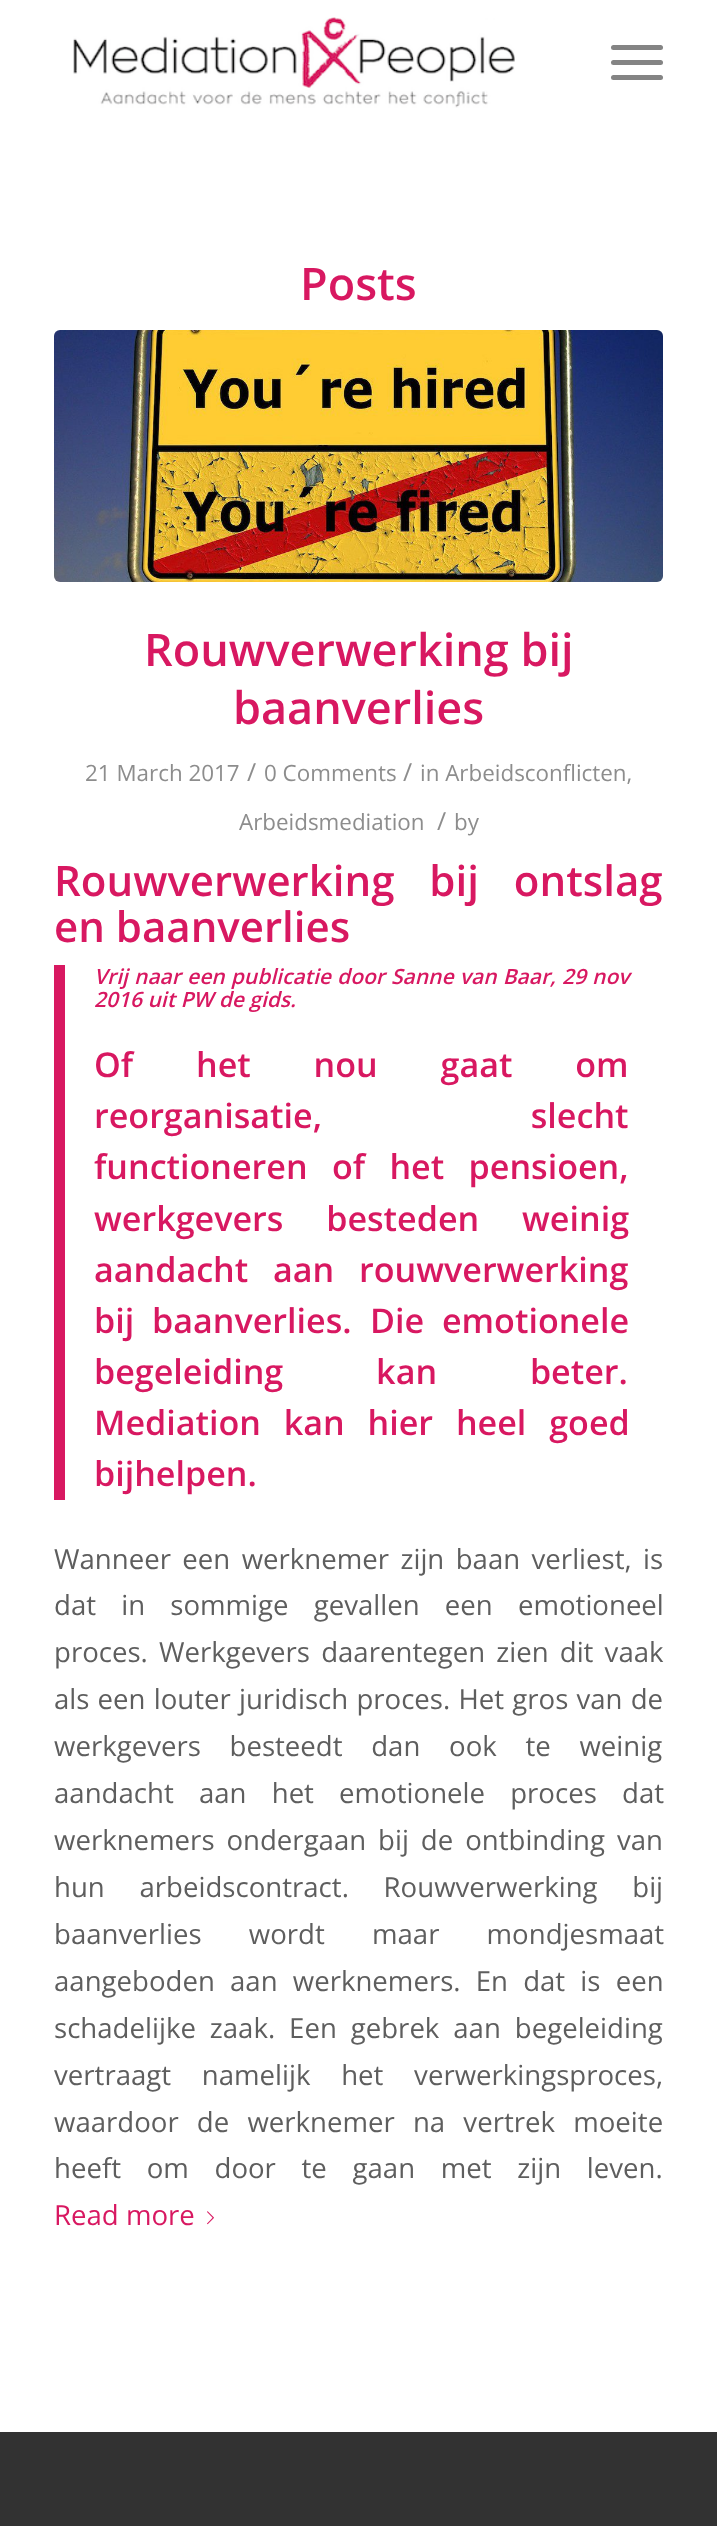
<!DOCTYPE html>
<meta charset="utf-8">
<style>body { margin: 0 } canvas { display: block }</style>
<canvas id="canvas" width="717" height="2526"></canvas>
<img id="img1" src="img_01.png" hidden>
<img id="img2" src="img_02.png" hidden>
<img id="img3" src="img_03.png" hidden>
<script>
window.onload = function () {
	const canvas = document.getElementById("canvas");
	const ctx = canvas.getContext("2d");
	ctx.miterLimit = 4;
	ctx.fontKerning = "normal";
	function txt(s, x, y) {
		ctx.fillText(s, x, y);
	}
	function fill(x, y, w, h) {
		ctx.fillRect(x, y, w, h);
	}
	function round(x, y, w, h, r) {
		ctx.beginPath();
		ctx.roundRect(x, y, w, h, r);
		ctx.fill();
	}
	function img(id, x, y, w, h) {
		ctx.drawImage(document.getElementById(id), x, y, w, h);
	}

	ctx.fillStyle = "#FFFFFF";
	fill(0, 0, 717, 2526);
	img("img1", 73, 17, 442, 91);
	ctx.fillStyle = "#848484";
	round(611, 60, 52, 5, 2.5);
	round(611, 45, 52, 5, 2.5);
	round(611, 75, 52, 5, 2.5);
	img("img2", 54, 330, 609, 252);
	ctx.fillStyle = "#D81861";
	fill(54, 965, 11, 535);
	img("img3", 207, 2211, 7, 14);
	ctx.fillStyle = "#323232";
	fill(0, 2432, 717, 94);
	ctx.font = "600 45px Open Sans";
	ctx.fillStyle = "#D81861";
	txt("Posts", 300, 300);
	txt("Rouwverwerking bij", 144, 666);
	txt("baanverlies", 233, 724);
	ctx.font = "22.4px Open Sans";
	ctx.fillStyle = "#8D8D8D";
	txt("21 March 2017", 85, 781);
	ctx.font = "25px Open Sans";
	txt("/", 247, 781);
	ctx.font = "22.4px Open Sans";
	txt("0 Comments", 264, 781);
	ctx.font = "25px Open Sans";
	txt("/", 403, 781);
	ctx.font = "22.4px Open Sans";
	txt("in Arbeidsconflicten,", 420, 781);
	txt("Arbeidsmediation", 239, 830);
	ctx.font = "25px Open Sans";
	txt("/", 437, 830);
	ctx.font = "22.4px Open Sans";
	txt("by", 454, 830);
	ctx.wordSpacing = "24px";
	ctx.font = "600 42px Open Sans";
	ctx.fillStyle = "#D81861";
	txt("Rouwverwerking bij ontslag", 54, 896);
	ctx.wordSpacing = "0px";
	txt("en baanverlies", 54, 942);
	ctx.wordSpacing = "0.75px";
	ctx.font = "italic 600 21px Open Sans";
	txt("Vrij naar een publicatie door Sanne van Baar, 29 nov", 94, 984);
	ctx.wordSpacing = "0px";
	txt("2016 uit PW de gids.", 94, 1007);
	ctx.wordSpacing = "54px";
	ctx.font = "600 34.1px Open Sans";
	txt("Of het nou gaat om", 94, 1077);
	ctx.wordSpacing = "200px";
	txt("reorganisatie, slecht", 94, 1128);
	ctx.wordSpacing = "15.5px";
	txt("functioneren of het pensioen,", 94, 1179);
	ctx.wordSpacing = "34px";
	txt("werkgevers besteden weinig", 94, 1231);
	ctx.wordSpacing = "16px";
	txt("aandacht aan rouwverwerking", 94, 1282);
	ctx.wordSpacing = "9px";
	txt("bij baanverlies.", 94, 1333);
	txt("Die emotionele", 370, 1333);
	ctx.wordSpacing = "84px";
	txt("begeleiding kan beter.", 94, 1384);
	ctx.wordSpacing = "14px";
	txt("Mediation kan hier heel goed", 94, 1435);
	ctx.wordSpacing = "0px";
	txt("bijhelpen.", 94, 1486);
	ctx.wordSpacing = "4.25px";
	ctx.font = "27.6px Open Sans";
	ctx.fillStyle = "#5E5E5E";
	txt("Wanneer een werknemer zijn baan verliest, is", 54, 1569);
	ctx.wordSpacing = "18px";
	txt("dat in sommige gevallen een emotioneel", 54, 1615);
	ctx.wordSpacing = "4px";
	txt("proces. Werkgevers daarentegen zien dit vaak", 54, 1662);
	ctx.wordSpacing = "1px";
	txt("als een louter juridisch proces. Het gros van de", 54, 1709);
	ctx.wordSpacing = "21.5px";
	txt("werkgevers besteedt dan ook te weinig", 54, 1756);
	ctx.wordSpacing = "18px";
	txt("aandacht aan het emotionele proces dat", 54, 1803);
	ctx.wordSpacing = "4.75px";
	txt("werknemers ondergaan bij de ontbinding van", 54, 1850);
	ctx.wordSpacing = "27.5px";
	txt("hun arbeidscontract. Rouwverwerking bij", 54, 1897);
	ctx.wordSpacing = "40px";
	txt("baanverlies wordt maar mondjesmaat", 54, 1944);
	ctx.wordSpacing = "8px";
	txt("aangeboden aan werknemers. En dat is een", 54, 1991);
	ctx.wordSpacing = "6.75px";
	txt("schadelijke zaak. Een gebrek aan begeleiding", 54, 2038);
	ctx.wordSpacing = "23.5px";
	txt("vertraagt namelijk het verwerkingsproces,", 54, 2085);
	ctx.wordSpacing = "11px";
	txt("waardoor de werknemer na vertrek moeite", 54, 2132);
	ctx.wordSpacing = "18.5px";
	txt("heeft om door te gaan met zijn leven.", 54, 2178);
	ctx.wordSpacing = "0px";
	ctx.fillStyle = "#D81861";
	txt("Read more", 54, 2225);
};
</script>
